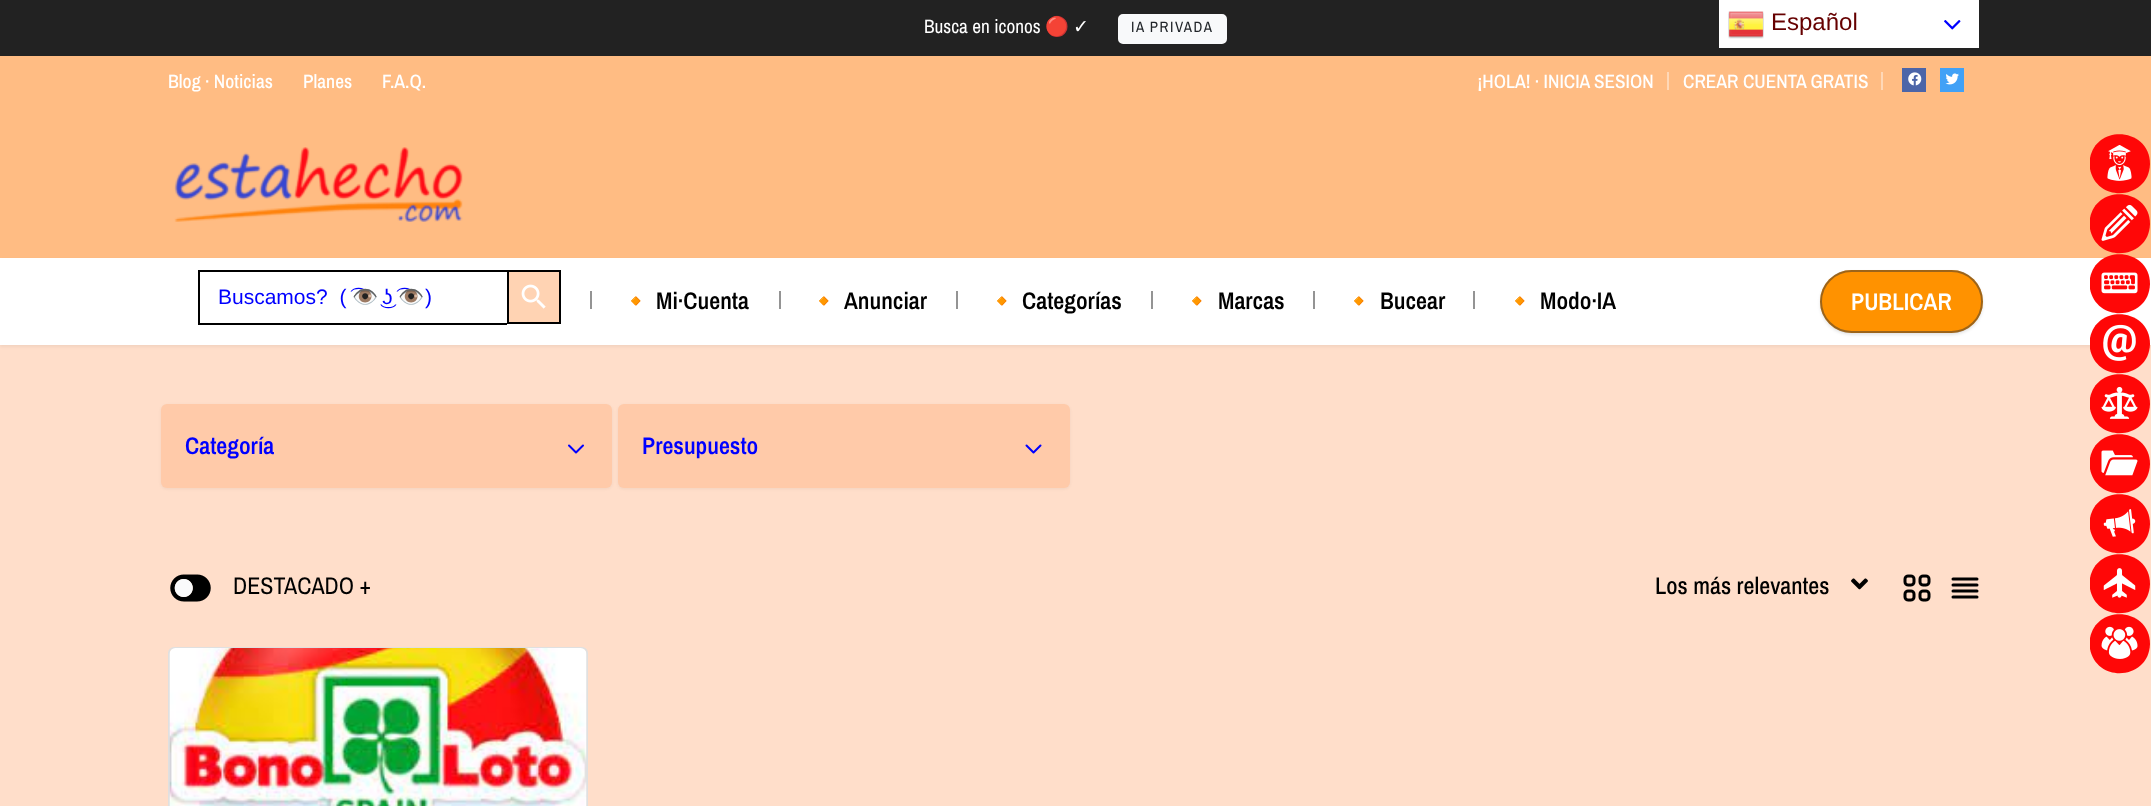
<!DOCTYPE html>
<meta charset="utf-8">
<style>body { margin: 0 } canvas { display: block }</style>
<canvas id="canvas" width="2151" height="806"></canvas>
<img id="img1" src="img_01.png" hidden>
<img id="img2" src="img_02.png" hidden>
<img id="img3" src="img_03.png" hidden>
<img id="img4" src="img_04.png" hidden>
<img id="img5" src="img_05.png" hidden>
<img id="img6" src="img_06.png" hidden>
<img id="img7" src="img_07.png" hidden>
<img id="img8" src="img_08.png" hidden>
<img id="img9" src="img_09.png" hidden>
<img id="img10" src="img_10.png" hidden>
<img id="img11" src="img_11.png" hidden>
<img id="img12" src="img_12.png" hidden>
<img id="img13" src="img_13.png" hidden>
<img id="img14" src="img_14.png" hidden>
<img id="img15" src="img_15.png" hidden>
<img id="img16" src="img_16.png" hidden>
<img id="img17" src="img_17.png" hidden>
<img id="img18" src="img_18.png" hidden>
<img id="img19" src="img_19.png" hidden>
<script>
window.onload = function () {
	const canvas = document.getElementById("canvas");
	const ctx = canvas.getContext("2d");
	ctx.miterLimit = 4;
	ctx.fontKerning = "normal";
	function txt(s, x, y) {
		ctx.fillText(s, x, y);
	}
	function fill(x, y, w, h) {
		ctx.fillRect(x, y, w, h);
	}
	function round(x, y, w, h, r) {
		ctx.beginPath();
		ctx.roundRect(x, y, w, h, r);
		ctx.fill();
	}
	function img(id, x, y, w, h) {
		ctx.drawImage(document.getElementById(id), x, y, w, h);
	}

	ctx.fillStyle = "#FFDECA";
	fill(0, 0, 2151, 806);
	ctx.fillStyle = "#222222";
	fill(0, 0, 2151, 56);
	ctx.fillStyle = "#FFFFFF";
	fill(1719, 0, 260, 48);
	img("img1", 1728, 11, 36, 28);
	img("img2", 1944, 20, 17, 10);
	ctx.fillStyle = "#F8F9FA";
	ctx.beginPath();
	ctx.roundRect(1119, 15, 107, 28, 4);
	ctx.fill();
	ctx.strokeStyle = "#F8F9FA";
	ctx.lineWidth = 2;
	ctx.stroke();
	ctx.fillStyle = "#FFBC83";
	fill(0, 56, 2151, 202);
	ctx.fillStyle = "#FFD8B7";
	fill(1667, 72, 2, 18);
	fill(1881, 72, 2, 18);
	ctx.fillStyle = "#4C65A8";
	fill(1902, 68, 24, 24);
	img("img3", 1908, 72, 14, 14);
	ctx.fillStyle = "#41A1F6";
	fill(1940, 68, 24, 24);
	img("img4", 1945, 73, 14, 12);
	img("img5", 174, 147, 289, 75);
	ctx.fillStyle = "rgba(0, 0, 0, 0.05)";
	ctx.filter = "blur(1.5px)";
	ctx.beginPath();
	ctx.rect(0, 260, 2151, 87);
	ctx.fill();
	ctx.filter = "none";
	ctx.fillStyle = "#FFFFFF";
	fill(0, 258, 2151, 87);
	ctx.fillStyle = "#000000";
	fill(198, 270, 309, 2);
	fill(198, 323, 309, 2);
	fill(198, 270, 2, 54);
	ctx.fillStyle = "#FFD3B3";
	ctx.beginPath();
	ctx.rect(508, 271, 52, 52);
	ctx.fill();
	ctx.strokeStyle = "#000000";
	ctx.stroke();
	img("img6", 521, 284, 25, 25);
	ctx.fillStyle = "#949494";
	fill(590, 291, 2, 18);
	fill(779, 291, 2, 18);
	fill(956, 291, 2, 18);
	fill(1151, 291, 2, 18);
	fill(1313, 291, 2, 18);
	fill(1473, 291, 2, 18);
	ctx.fillStyle = "rgba(0, 0, 0, 0.1)";
	ctx.filter = "blur(1.5px)";
	ctx.beginPath();
	ctx.roundRect(1820, 272, 163, 63, 31.5);
	ctx.fill();
	ctx.filter = "none";
	ctx.fillStyle = "#FF9200";
	round(1820, 270, 163, 63, 31.5);
	ctx.beginPath();
	ctx.roundRect(1821, 271, 161, 61, 30.5);
	ctx.strokeStyle = "rgba(54, 54, 54, 0.49)";
	ctx.stroke();
	ctx.fillStyle = "rgba(0, 0, 0, 0.05)";
	ctx.filter = "blur(1.5px)";
	ctx.beginPath();
	ctx.roundRect(161, 405, 451, 84, 6);
	ctx.fill();
	ctx.filter = "none";
	ctx.fillStyle = "#FFCAA9";
	round(161, 404, 451, 84, 6);
	ctx.beginPath();
	ctx.moveTo(583, 445.5);
	ctx.lineTo(576, 452.5);
	ctx.lineTo(569, 445.5);
	ctx.strokeStyle = "#0000FF";
	ctx.lineCap = "round";
	ctx.lineJoin = "round";
	ctx.stroke();
	ctx.fillStyle = "rgba(0, 0, 0, 0.05)";
	ctx.filter = "blur(1.5px)";
	ctx.beginPath();
	ctx.roundRect(618, 405, 452, 84, 6);
	ctx.fill();
	ctx.filter = "none";
	ctx.fillStyle = "#FFCAA9";
	round(618, 404, 452, 84, 6);
	ctx.beginPath();
	ctx.moveTo(1040.5, 445.5);
	ctx.lineTo(1033.5, 452.5);
	ctx.lineTo(1026.5, 445.5);
	ctx.stroke();
	img("img7", 170, 574, 41, 28);
	img("img8", 1851, 578, 17, 12);
	img("img9", 1903, 574, 28, 28);
	ctx.beginPath();
	ctx.moveTo(1953, 579);
	ctx.lineTo(1977, 579);
	ctx.moveTo(1953, 585);
	ctx.lineTo(1977, 585);
	ctx.moveTo(1953, 591);
	ctx.lineTo(1977, 591);
	ctx.moveTo(1953, 597);
	ctx.lineTo(1977, 597);
	ctx.strokeStyle = "#000000";
	ctx.lineWidth = 3;
	ctx.stroke();
	ctx.beginPath();
	ctx.roundRect(169, 648, 418, 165, 5);
	ctx.strokeStyle = "#E0E0E0";
	ctx.lineWidth = 2;
	ctx.lineJoin = "miter";
	ctx.stroke();
	img("img10", 169, 648, 418, 158);
	ctx.fillStyle = "#FF0707";
	ctx.beginPath();
	ctx.moveTo(2090, 158);
	ctx.bezierCurveTo(2097, 123, 2150, 128, 2150, 164);
	ctx.bezierCurveTo(2149, 200, 2097, 204, 2090, 169);
	ctx.closePath();
	ctx.fill();
	img("img11", 2107, 145, 25, 36);
	ctx.beginPath();
	ctx.moveTo(2090, 218);
	ctx.bezierCurveTo(2097, 183, 2150, 188, 2150, 224);
	ctx.bezierCurveTo(2149, 260, 2097, 264, 2090, 229);
	ctx.closePath();
	ctx.fill();
	img("img12", 2101, 204, 37, 37);
	ctx.beginPath();
	ctx.moveTo(2090, 278);
	ctx.bezierCurveTo(2097, 243, 2150, 248, 2150, 284);
	ctx.bezierCurveTo(2149, 320, 2097, 324, 2090, 289);
	ctx.closePath();
	ctx.fill();
	img("img13", 2101, 272, 37, 22);
	ctx.beginPath();
	ctx.moveTo(2090, 338);
	ctx.bezierCurveTo(2097, 303, 2150, 308, 2150, 344);
	ctx.bezierCurveTo(2149, 380, 2097, 384, 2090, 349);
	ctx.closePath();
	ctx.fill();
	img("img14", 2103, 324, 33, 37);
	ctx.beginPath();
	ctx.moveTo(2090, 398);
	ctx.bezierCurveTo(2097, 363, 2150, 368, 2150, 404);
	ctx.bezierCurveTo(2149, 440, 2097, 444, 2090, 409);
	ctx.closePath();
	ctx.fill();
	img("img15", 2101, 386, 37, 33);
	ctx.beginPath();
	ctx.moveTo(2090, 458);
	ctx.bezierCurveTo(2097, 423, 2150, 428, 2150, 464);
	ctx.bezierCurveTo(2149, 500, 2097, 504, 2090, 469);
	ctx.closePath();
	ctx.fill();
	img("img16", 2101, 450, 37, 26);
	ctx.beginPath();
	ctx.moveTo(2090, 518);
	ctx.bezierCurveTo(2097, 483, 2150, 488, 2150, 524);
	ctx.bezierCurveTo(2149, 560, 2097, 564, 2090, 529);
	ctx.closePath();
	ctx.fill();
	img("img17", 2103, 509, 33, 28);
	ctx.beginPath();
	ctx.moveTo(2090, 578);
	ctx.bezierCurveTo(2097, 543, 2150, 548, 2150, 584);
	ctx.bezierCurveTo(2149, 620, 2097, 624, 2090, 589);
	ctx.closePath();
	ctx.fill();
	img("img18", 2103, 568, 33, 30);
	ctx.beginPath();
	ctx.moveTo(2090, 638);
	ctx.bezierCurveTo(2097, 603, 2150, 608, 2150, 644);
	ctx.bezierCurveTo(2149, 680, 2097, 684, 2090, 649);
	ctx.closePath();
	ctx.fill();
	img("img19", 2101, 626, 37, 33);
	ctx.font = "24px Liberation Sans";
	ctx.fillStyle = "#660000";
	txt("Español", 1771, 30);
	ctx.font = "19.25px Archivo Narrow";
	ctx.fillStyle = "#FFFFFF";
	txt("Busca en iconos", 924, 33);
	ctx.font = "19.25px Noto Color Emoji";
	txt("🔴", 1045, 33);
	ctx.font = "19.25px DejaVu Sans";
	txt("✓", 1073, 33);
	ctx.letterSpacing = "1.5px";
	ctx.font = "15px Archivo Narrow";
	ctx.fillStyle = "#212529";
	txt("IA PRIVADA", 1131, 32);
	ctx.letterSpacing = "0px";
	ctx.font = "500 19.25px Archivo Narrow";
	ctx.fillStyle = "#FFFFFF";
	txt("Blog · Noticias", 168, 88);
	txt("Planes", 303, 88);
	txt("F.A.Q.", 382, 88);
	txt("¡HOLA! · INICIA SESION", 1477, 88);
	txt("CREAR CUENTA GRATIS", 1683, 88);
	ctx.font = "21px Liberation Sans";
	ctx.fillStyle = "#0000FF";
	txt("Buscamos?  ( ͡", 218, 304);
	ctx.font = "21px Noto Color Emoji";
	txt("👁️", 352, 304);
	ctx.font = "21px Liberation Sans";
	txt("͜ʖ ͡", 382, 304);
	ctx.font = "21px Noto Color Emoji";
	txt("👁️", 398, 304);
	ctx.font = "21px Liberation Sans";
	txt(")", 425, 304);
	ctx.font = "bold 24px Noto Color Emoji";
	ctx.fillStyle = "#000000";
	txt("🔸", 621, 309);
	ctx.font = "600 24px Archivo Narrow";
	txt("Mi·Cuenta", 656, 309);
	ctx.font = "bold 24px Noto Color Emoji";
	txt("🔸", 809, 309);
	ctx.font = "600 24px Archivo Narrow";
	txt("Anunciar", 844, 309);
	ctx.font = "bold 24px Noto Color Emoji";
	txt("🔸", 987, 309);
	ctx.font = "600 24px Archivo Narrow";
	txt("Categorías", 1022, 309);
	ctx.font = "bold 24px Noto Color Emoji";
	txt("🔸", 1182, 309);
	ctx.font = "600 24px Archivo Narrow";
	txt("Marcas", 1218, 309);
	ctx.font = "bold 24px Noto Color Emoji";
	txt("🔸", 1344, 309);
	ctx.font = "600 24px Archivo Narrow";
	txt("Bucear", 1380, 309);
	ctx.font = "bold 24px Noto Color Emoji";
	txt("🔸", 1505, 309);
	ctx.font = "600 24px Archivo Narrow";
	txt("Modo·IA", 1540, 309);
	ctx.fillStyle = "#FFFFFF";
	txt("PUBLICAR", 1851, 310);
	ctx.fillStyle = "#0000FF";
	txt("Categoría", 185, 454);
	txt("Presupuesto", 642, 454);
	ctx.font = "24px Archivo Narrow";
	ctx.fillStyle = "#000000";
	txt("DESTACADO +", 233, 594);
	ctx.font = "500 24px Archivo Narrow";
	txt("Los más relevantes", 1655, 594);
};
</script>
